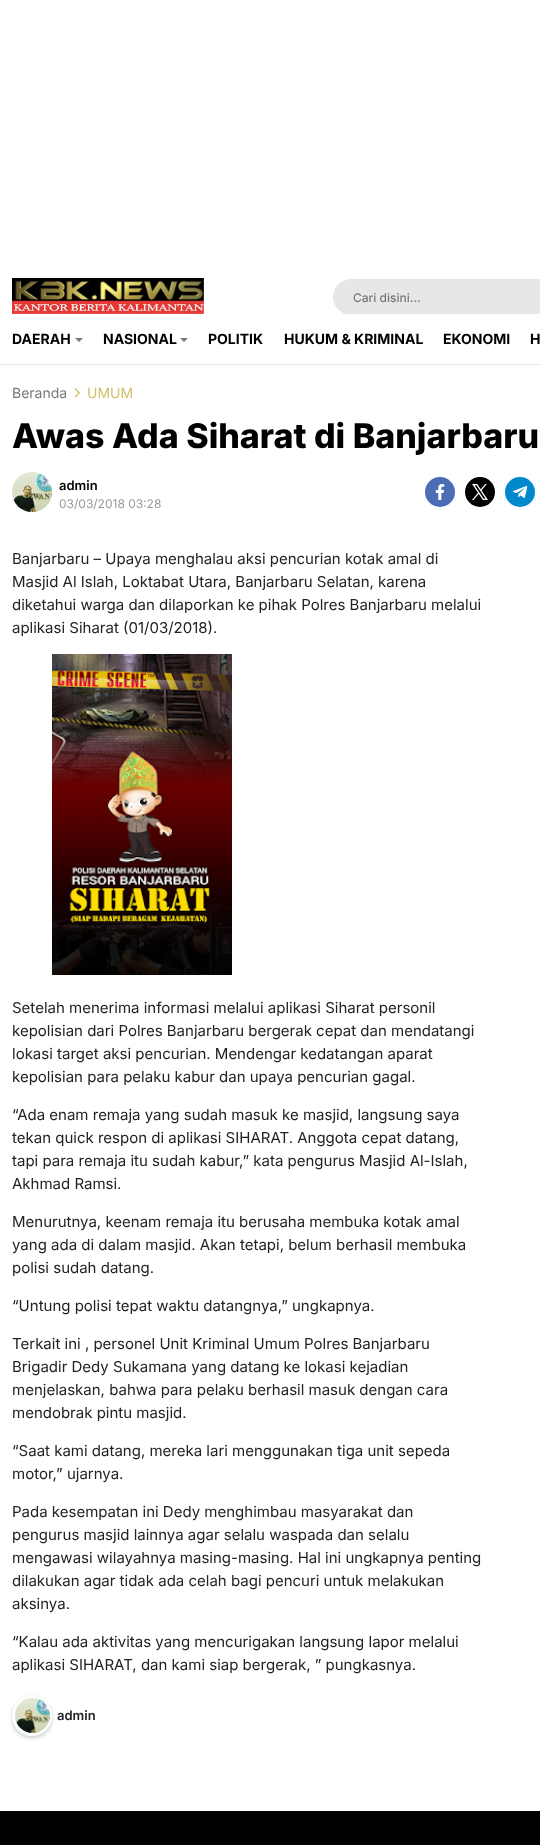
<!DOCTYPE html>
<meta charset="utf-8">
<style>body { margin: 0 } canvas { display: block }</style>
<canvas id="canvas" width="540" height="1845"></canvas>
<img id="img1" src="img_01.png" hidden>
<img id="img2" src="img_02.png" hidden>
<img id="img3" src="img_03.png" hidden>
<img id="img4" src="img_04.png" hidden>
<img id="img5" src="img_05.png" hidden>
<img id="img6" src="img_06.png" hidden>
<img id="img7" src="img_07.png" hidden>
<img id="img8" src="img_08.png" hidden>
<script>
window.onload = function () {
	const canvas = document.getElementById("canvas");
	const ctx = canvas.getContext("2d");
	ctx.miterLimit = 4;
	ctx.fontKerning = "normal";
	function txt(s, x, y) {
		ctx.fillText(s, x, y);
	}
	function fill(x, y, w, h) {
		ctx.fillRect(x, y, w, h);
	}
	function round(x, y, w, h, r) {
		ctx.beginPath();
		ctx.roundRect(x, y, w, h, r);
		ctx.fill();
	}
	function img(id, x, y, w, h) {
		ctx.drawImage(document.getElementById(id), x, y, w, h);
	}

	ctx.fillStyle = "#000000";
	fill(0, 0, 540, 1845);
	ctx.fillStyle = "#FFFFFF";
	fill(0, 0, 540, 1811);
	img("img1", 12, 278, 192, 36);
	ctx.fillStyle = "#E7E7E7";
	round(333, 279, 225, 36, 18);
	ctx.fillStyle = "#E6E6E6";
	fill(0, 364, 540, 1);
	ctx.fillStyle = "#FFFFFF";
	fill(345, 314, 195, 1);
	ctx.fillStyle = "#787878";
	ctx.beginPath();
	ctx.moveTo(75, 338);
	ctx.lineTo(83, 338);
	ctx.lineTo(79, 342);
	ctx.closePath();
	ctx.fill();
	ctx.beginPath();
	ctx.moveTo(180, 338);
	ctx.lineTo(188, 338);
	ctx.lineTo(184, 342);
	ctx.closePath();
	ctx.fill();
	img("img2", 74, 388, 6, 10);
	img("img3", 12, 472, 40, 40);
	ctx.fillStyle = "#4A6DB4";
	ctx.beginPath();
	ctx.arc(440, 492, 15, 0, Math.PI * 2);
	ctx.fill();
	img("img4", 435, 484, 10, 16);
	ctx.fillStyle = "#000000";
	ctx.beginPath();
	ctx.arc(480, 492, 15, 0, Math.PI * 2);
	ctx.fill();
	img("img5", 472, 484, 16, 16);
	ctx.fillStyle = "#0088CC";
	ctx.beginPath();
	ctx.arc(520, 492, 15, 0, Math.PI * 2);
	ctx.fill();
	img("img6", 512, 486, 16, 12);
	img("img7", 52, 654, 180, 321);
	ctx.fillStyle = "rgba(0, 0, 0, 0.2)";
	ctx.filter = "blur(2px)";
	ctx.beginPath();
	ctx.roundRect(12, 1698, 40, 40, 20);
	ctx.fill();
	ctx.filter = "none";
	ctx.fillStyle = "#FFFFFF";
	ctx.beginPath();
	ctx.arc(32, 1716, 20, 0, Math.PI * 2);
	ctx.fill();
	img("img8", 15, 1698, 35, 35);
	ctx.font = "500 12px Inter";
	ctx.fillStyle = "#787878";
	txt("Cari disini...", 353, 302);
	ctx.font = "bold 14px Inter";
	ctx.fillStyle = "#000000";
	txt("DAERAH", 12, 344);
	txt("NASIONAL", 103, 344);
	txt("POLITIK", 208, 344);
	txt("HUKUM & KRIMINAL", 284, 344);
	txt("EKONOMI", 443, 344);
	txt("H", 530, 344);
	ctx.font = "14px Inter";
	ctx.fillStyle = "#787878";
	txt("Beranda", 12, 398);
	ctx.fillStyle = "#D1C06A";
	txt("UMUM", 87, 398);
	ctx.font = "800 34px Inter";
	ctx.fillStyle = "#000000";
	txt("Awas Ada Siharat di Banjarbaru", 12, 448);
	ctx.font = "600 13px Inter";
	txt("admin", 59, 490);
	ctx.font = "12px Inter";
	ctx.fillStyle = "#999999";
	txt("03/03/2018 03:28", 59, 508);
	ctx.font = "15px Inter";
	ctx.fillStyle = "#222222";
	txt("Banjarbaru – Upaya menghalau aksi pencurian kotak amal di", 12, 564);
	txt("Masjid Al Islah, Loktabat Utara, Banjarbaru Selatan, karena", 12, 587);
	txt("diketahui warga dan dilaporkan ke pihak Polres Banjarbaru melalui", 12, 610);
	txt("aplikasi Siharat (01/03/2018).", 12, 633);
	txt("Setelah menerima informasi melalui aplikasi Siharat personil", 12, 1013);
	txt("kepolisian dari Polres Banjarbaru bergerak cepat dan mendatangi", 12, 1036);
	txt("lokasi target aksi pencurian. Mendengar kedatangan aparat", 12, 1059);
	txt("kepolisian para pelaku kabur dan upaya pencurian gagal.", 12, 1082);
	txt("“Ada enam remaja yang sudah masuk ke masjid, langsung saya", 12, 1120);
	txt("tekan quick respon di aplikasi SIHARAT. Anggota cepat datang,", 12, 1143);
	txt("tapi para remaja itu sudah kabur,” kata pengurus Masjid Al-Islah,", 12, 1166);
	txt("Akhmad Ramsi.", 12, 1189);
	txt("Menurutnya, keenam remaja itu berusaha membuka kotak amal", 12, 1227);
	txt("yang ada di dalam masjid. Akan tetapi, belum berhasil membuka", 12, 1250);
	txt("polisi sudah datang.", 12, 1273);
	txt("“Untung polisi tepat waktu datangnya,” ungkapnya.", 12, 1311);
	txt("Terkait ini , personel Unit Kriminal Umum Polres Banjarbaru", 12, 1349);
	txt("Brigadir Dedy Sukamana yang datang ke lokasi kejadian", 12, 1372);
	txt("menjelaskan, bahwa para pelaku berhasil masuk dengan cara", 12, 1395);
	txt("mendobrak pintu masjid.", 12, 1418);
	txt("“Saat kami datang, mereka lari menggunakan tiga unit sepeda", 12, 1456);
	txt("motor,” ujarnya.", 12, 1479);
	txt("Pada kesempatan ini Dedy menghimbau masyarakat dan", 12, 1517);
	txt("pengurus masjid lainnya agar selalu waspada dan selalu", 12, 1540);
	txt("mengawasi wilayahnya masing-masing. Hal ini ungkapnya penting", 12, 1563);
	txt("dilakukan agar tidak ada celah bagi pencuri untuk melakukan", 12, 1586);
	txt("aksinya.", 12, 1609);
	txt("“Kalau ada aktivitas yang mencurigakan langsung lapor melalui", 12, 1647);
	txt("aplikasi SIHARAT, dan kami siap bergerak, ” pungkasnya.", 12, 1670);
	ctx.font = "600 13px Inter";
	txt("admin", 57, 1720);
};
</script>
